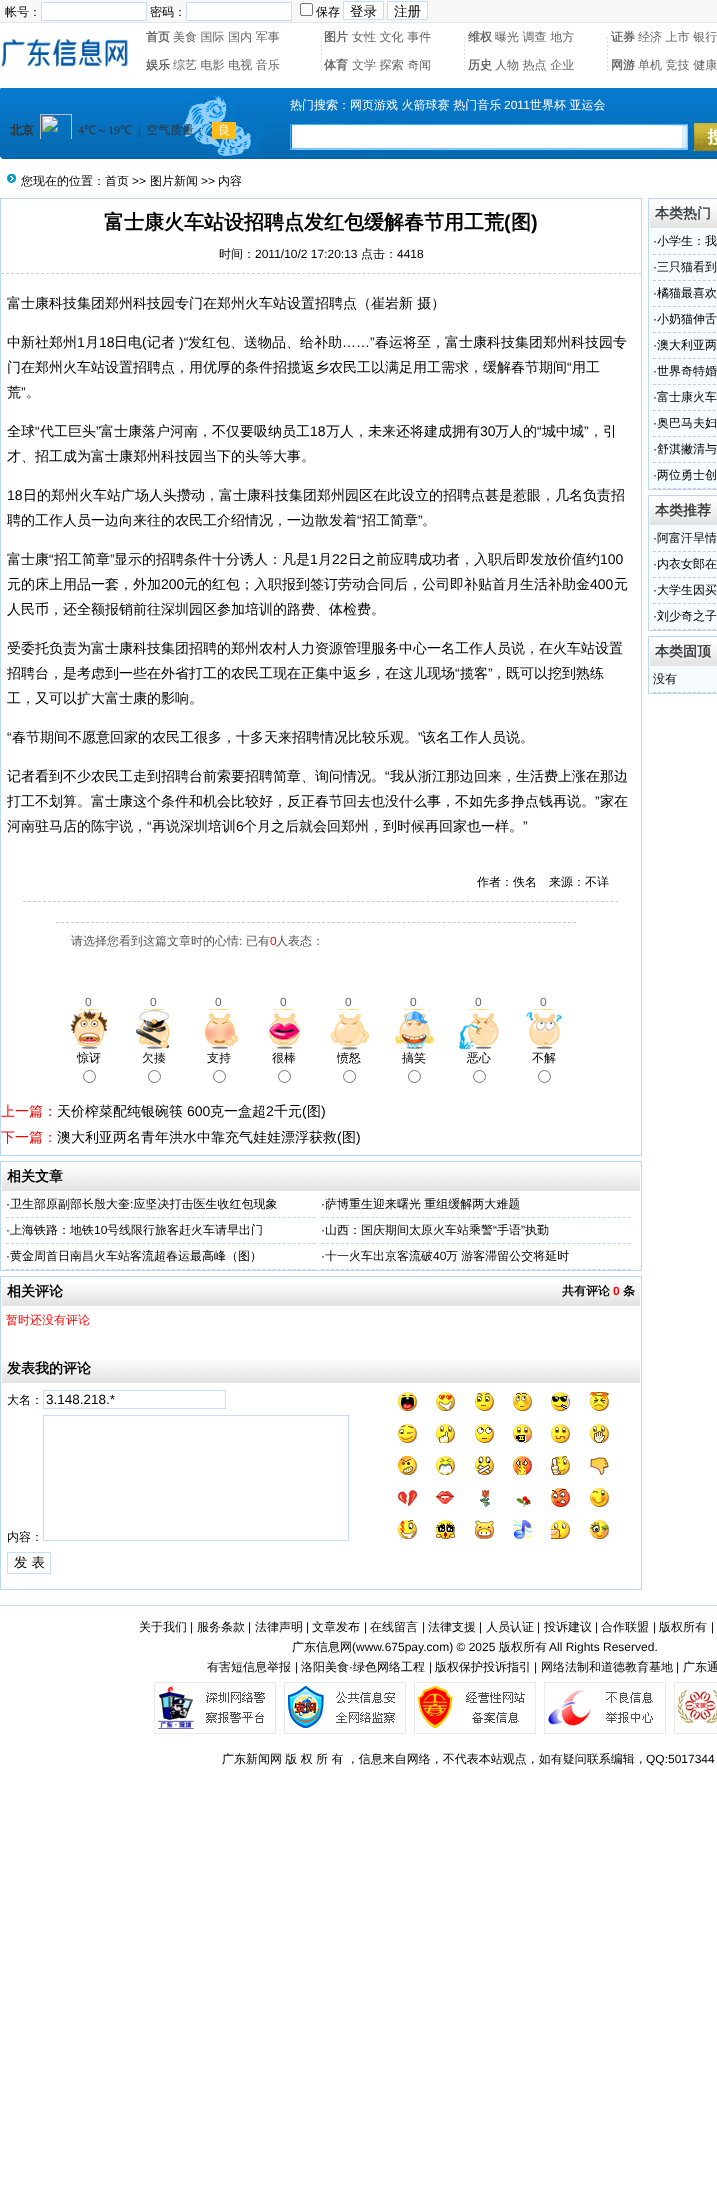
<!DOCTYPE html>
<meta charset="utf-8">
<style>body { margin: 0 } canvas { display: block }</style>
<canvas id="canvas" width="717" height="2201"></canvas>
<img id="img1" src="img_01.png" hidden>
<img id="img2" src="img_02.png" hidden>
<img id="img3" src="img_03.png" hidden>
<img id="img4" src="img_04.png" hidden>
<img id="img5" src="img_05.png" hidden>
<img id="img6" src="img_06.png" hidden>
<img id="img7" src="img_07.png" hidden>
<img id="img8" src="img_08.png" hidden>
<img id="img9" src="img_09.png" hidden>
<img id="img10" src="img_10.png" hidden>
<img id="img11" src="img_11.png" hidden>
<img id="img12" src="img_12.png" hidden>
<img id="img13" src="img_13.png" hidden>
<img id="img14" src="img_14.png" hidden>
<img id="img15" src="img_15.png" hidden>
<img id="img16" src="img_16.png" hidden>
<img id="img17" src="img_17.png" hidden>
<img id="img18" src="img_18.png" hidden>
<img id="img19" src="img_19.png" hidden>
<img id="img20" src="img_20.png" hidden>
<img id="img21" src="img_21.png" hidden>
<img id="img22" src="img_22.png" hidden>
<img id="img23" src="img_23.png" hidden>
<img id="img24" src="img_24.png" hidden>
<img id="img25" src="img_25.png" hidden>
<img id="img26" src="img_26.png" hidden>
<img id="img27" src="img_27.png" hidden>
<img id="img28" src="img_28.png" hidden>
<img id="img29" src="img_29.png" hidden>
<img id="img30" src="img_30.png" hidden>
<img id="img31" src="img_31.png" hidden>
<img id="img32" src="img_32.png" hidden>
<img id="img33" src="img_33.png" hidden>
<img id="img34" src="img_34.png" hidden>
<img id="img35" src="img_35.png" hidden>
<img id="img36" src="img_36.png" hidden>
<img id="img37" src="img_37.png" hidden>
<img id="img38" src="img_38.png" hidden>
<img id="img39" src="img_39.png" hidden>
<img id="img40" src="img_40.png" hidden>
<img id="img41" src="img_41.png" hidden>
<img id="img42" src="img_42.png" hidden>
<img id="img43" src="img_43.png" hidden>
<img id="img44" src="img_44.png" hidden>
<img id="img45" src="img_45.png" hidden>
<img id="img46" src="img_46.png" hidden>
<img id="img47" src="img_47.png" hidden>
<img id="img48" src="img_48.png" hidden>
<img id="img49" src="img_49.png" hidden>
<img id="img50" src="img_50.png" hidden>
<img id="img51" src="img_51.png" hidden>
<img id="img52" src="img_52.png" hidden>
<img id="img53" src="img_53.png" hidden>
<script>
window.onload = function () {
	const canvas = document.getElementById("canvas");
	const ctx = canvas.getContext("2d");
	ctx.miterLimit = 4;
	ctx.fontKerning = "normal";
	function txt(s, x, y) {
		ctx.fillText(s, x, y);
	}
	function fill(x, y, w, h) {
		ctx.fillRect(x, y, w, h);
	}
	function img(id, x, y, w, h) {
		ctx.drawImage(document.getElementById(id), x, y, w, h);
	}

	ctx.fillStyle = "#FFFFFF";
	fill(0, 0, 717, 2201);
	img("img1", 0, 0, 717, 23);
	ctx.beginPath();
	ctx.rect(41.5, 2.5, 105, 18);
	ctx.fill();
	ctx.strokeStyle = "#C6DFFF";
	ctx.stroke();
	ctx.beginPath();
	ctx.rect(186.5, 2.5, 105, 18);
	ctx.fill();
	ctx.stroke();
	ctx.beginPath();
	ctx.roundRect(300.5, 3.5, 12, 12, 1.5);
	ctx.fill();
	ctx.strokeStyle = "#767676";
	ctx.stroke();
	ctx.beginPath();
	ctx.rect(343.5, 1.5, 40, 18);
	ctx.fill();
	ctx.strokeStyle = "#C6DFFF";
	ctx.stroke();
	ctx.beginPath();
	ctx.rect(387.5, 1.5, 40, 18);
	ctx.fill();
	ctx.stroke();
	img("img2", 0, 38, 128, 29);
	img("img3", 321, 37, 1, 34);
	img("img3", 464, 37, 1, 34);
	img("img3", 607, 37, 1, 34);
	img("img4", 0, 88, 717, 72);
	img("img5", 10, 114, 226, 25);
	fill(296, 126, 386, 22);
	img("img6", 694, 123, 23, 28);
	img("img7", 7, 174, 9, 9);
	ctx.strokeStyle = "#BDD7F2";
	ctx.strokeRect(0.5, 198.5, 641, 957);
	ctx.beginPath();
	ctx.moveTo(1, 273.5);
	ctx.lineTo(641, 273.5);
	ctx.strokeStyle = "#CCCCCC";
	ctx.setLineDash([3, 2.02]);
	ctx.stroke();
	ctx.beginPath();
	ctx.moveTo(23, 901.5);
	ctx.lineTo(619, 901.5);
	ctx.setLineDash([3, 1.98]);
	ctx.stroke();
	ctx.beginPath();
	ctx.moveTo(56, 922.5);
	ctx.lineTo(576, 922.5);
	ctx.setLineDash([3, 2.02]);
	ctx.stroke();
	img("img8", 79, 1009, 20, 1);
	img("img8", 144, 1009, 20, 1);
	img("img8", 209, 1009, 20, 1);
	img("img8", 274, 1009, 20, 1);
	img("img8", 339, 1009, 20, 1);
	img("img8", 404, 1009, 20, 1);
	img("img8", 469, 1009, 20, 1);
	img("img8", 534, 1009, 20, 1);
	img("img9", 70, 1010, 38, 39);
	img("img10", 135, 1010, 35, 39);
	img("img11", 204, 1013, 35, 37);
	img("img12", 268, 1013, 33, 37);
	img("img13", 330, 1013, 39, 37);
	img("img14", 395, 1011, 39, 39);
	img("img15", 459, 1013, 40, 37);
	img("img16", 525, 1011, 37, 39);
	ctx.beginPath();
	ctx.arc(89.5, 1076.5, 6, 0, Math.PI * 2);
	ctx.strokeStyle = "#767676";
	ctx.setLineDash([]);
	ctx.stroke();
	ctx.beginPath();
	ctx.arc(154.5, 1076.5, 6, 0, Math.PI * 2);
	ctx.stroke();
	ctx.beginPath();
	ctx.arc(219.5, 1076.5, 6, 0, Math.PI * 2);
	ctx.stroke();
	ctx.beginPath();
	ctx.arc(284.5, 1076.5, 6, 0, Math.PI * 2);
	ctx.stroke();
	ctx.beginPath();
	ctx.arc(349.5, 1076.5, 6, 0, Math.PI * 2);
	ctx.stroke();
	ctx.beginPath();
	ctx.arc(414.5, 1076.5, 6, 0, Math.PI * 2);
	ctx.stroke();
	ctx.beginPath();
	ctx.arc(479.5, 1076.5, 6, 0, Math.PI * 2);
	ctx.stroke();
	ctx.beginPath();
	ctx.arc(544.5, 1076.5, 6, 0, Math.PI * 2);
	ctx.stroke();
	ctx.strokeStyle = "#BDD7F2";
	ctx.strokeRect(0.5, 1161.5, 641, 109);
	img("img17", 2, 1168, 638, 23);
	ctx.beginPath();
	ctx.moveTo(6, 1217.5);
	ctx.lineTo(316, 1217.5);
	ctx.setLineDash([3, 2.03]);
	ctx.stroke();
	ctx.beginPath();
	ctx.moveTo(321, 1217.5);
	ctx.lineTo(631, 1217.5);
	ctx.stroke();
	ctx.beginPath();
	ctx.moveTo(6, 1243.5);
	ctx.lineTo(316, 1243.5);
	ctx.stroke();
	ctx.beginPath();
	ctx.moveTo(321, 1243.5);
	ctx.lineTo(631, 1243.5);
	ctx.stroke();
	ctx.beginPath();
	ctx.moveTo(6, 1269.5);
	ctx.lineTo(316, 1269.5);
	ctx.stroke();
	ctx.beginPath();
	ctx.moveTo(321, 1269.5);
	ctx.lineTo(631, 1269.5);
	ctx.stroke();
	ctx.setLineDash([]);
	ctx.strokeRect(0.5, 1276.5, 641, 313);
	img("img17", 2, 1283, 638, 23);
	img("img17", 2, 1360, 638, 23);
	ctx.strokeStyle = "#C6DFFF";
	ctx.strokeRect(43.5, 1390.5, 182, 18);
	ctx.strokeRect(43.5, 1415.5, 305, 125);
	ctx.strokeRect(7.5, 1552.5, 43, 21);
	img("img18", 398, 1392, 19, 19);
	img("img19", 436, 1392, 19, 19);
	img("img20", 475, 1392, 19, 19);
	img("img21", 513, 1392, 19, 19);
	img("img22", 551, 1392, 19, 19);
	img("img23", 590, 1392, 19, 19);
	img("img24", 398, 1424, 19, 19);
	img("img25", 436, 1424, 19, 19);
	img("img26", 475, 1424, 19, 19);
	img("img27", 513, 1424, 19, 19);
	img("img28", 551, 1424, 19, 19);
	img("img29", 590, 1424, 19, 19);
	img("img30", 398, 1456, 19, 19);
	img("img31", 436, 1456, 19, 19);
	img("img32", 475, 1456, 19, 19);
	img("img33", 513, 1456, 19, 19);
	img("img34", 551, 1456, 19, 19);
	img("img35", 590, 1457, 19, 18);
	img("img36", 398, 1490, 19, 16);
	img("img37", 436, 1491, 18, 13);
	img("img38", 480, 1490, 10, 17);
	img("img39", 516, 1496, 15, 11);
	img("img40", 551, 1488, 19, 19);
	img("img41", 590, 1488, 19, 19);
	img("img42", 398, 1520, 19, 19);
	img("img43", 436, 1520, 19, 19);
	img("img44", 475, 1520, 19, 19);
	img("img45", 513, 1520, 19, 19);
	img("img46", 551, 1520, 19, 19);
	img("img47", 590, 1520, 19, 19);
	ctx.fillStyle = "#F5FBFF";
	ctx.beginPath();
	ctx.rect(648.5, 198.5, 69, 291);
	ctx.fill();
	ctx.strokeStyle = "#BDD7F2";
	ctx.stroke();
	img("img48", 650, 200, 67, 28);
	ctx.beginPath();
	ctx.moveTo(653, 254.5);
	ctx.lineTo(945, 254.5);
	ctx.strokeStyle = "#CCCCCC";
	ctx.setLineDash([3, 1.98]);
	ctx.stroke();
	ctx.beginPath();
	ctx.moveTo(653, 280.5);
	ctx.lineTo(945, 280.5);
	ctx.stroke();
	ctx.beginPath();
	ctx.moveTo(653, 306.5);
	ctx.lineTo(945, 306.5);
	ctx.stroke();
	ctx.beginPath();
	ctx.moveTo(653, 332.5);
	ctx.lineTo(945, 332.5);
	ctx.stroke();
	ctx.beginPath();
	ctx.moveTo(653, 358.5);
	ctx.lineTo(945, 358.5);
	ctx.stroke();
	ctx.beginPath();
	ctx.moveTo(653, 384.5);
	ctx.lineTo(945, 384.5);
	ctx.stroke();
	ctx.beginPath();
	ctx.moveTo(653, 410.5);
	ctx.lineTo(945, 410.5);
	ctx.stroke();
	ctx.beginPath();
	ctx.moveTo(653, 436.5);
	ctx.lineTo(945, 436.5);
	ctx.stroke();
	ctx.beginPath();
	ctx.moveTo(653, 462.5);
	ctx.lineTo(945, 462.5);
	ctx.stroke();
	ctx.beginPath();
	ctx.moveTo(653, 488.5);
	ctx.lineTo(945, 488.5);
	ctx.stroke();
	ctx.beginPath();
	ctx.rect(648.5, 495.5, 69, 135);
	ctx.fill();
	ctx.strokeStyle = "#BDD7F2";
	ctx.setLineDash([]);
	ctx.stroke();
	img("img48", 650, 497, 67, 28);
	ctx.beginPath();
	ctx.moveTo(653, 551.5);
	ctx.lineTo(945, 551.5);
	ctx.strokeStyle = "#CCCCCC";
	ctx.setLineDash([3, 1.98]);
	ctx.stroke();
	ctx.beginPath();
	ctx.moveTo(653, 577.5);
	ctx.lineTo(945, 577.5);
	ctx.stroke();
	ctx.beginPath();
	ctx.moveTo(653, 603.5);
	ctx.lineTo(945, 603.5);
	ctx.stroke();
	ctx.beginPath();
	ctx.moveTo(653, 629.5);
	ctx.lineTo(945, 629.5);
	ctx.stroke();
	ctx.beginPath();
	ctx.rect(648.5, 636.5, 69, 57);
	ctx.fill();
	ctx.strokeStyle = "#BDD7F2";
	ctx.setLineDash([]);
	ctx.stroke();
	img("img48", 650, 638, 67, 28);
	ctx.beginPath();
	ctx.moveTo(653, 692.5);
	ctx.lineTo(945, 692.5);
	ctx.strokeStyle = "#CCCCCC";
	ctx.setLineDash([3, 1.98]);
	ctx.stroke();
	ctx.fillStyle = "#C6DFFF";
	fill(0, 1605, 717, 1);
	img("img49", 154, 1682, 122, 52);
	img("img50", 284, 1682, 122, 52);
	img("img51", 414, 1682, 122, 52);
	img("img52", 544, 1682, 122, 52);
	img("img53", 674, 1682, 43, 52);
	ctx.font = "500 12px WenQuanYi Zen Hei";
	ctx.fillStyle = "#000000";
	txt("帐号：", 5, 16);
	txt("密码：", 150, 16);
	txt("保存", 316, 16);
	ctx.font = "500 13.5px WenQuanYi Zen Hei";
	txt("登录", 350, 16);
	txt("注册", 394, 16);
	ctx.font = "bold 12px WenQuanYi Zen Hei";
	ctx.fillStyle = "#666666";
	txt("首页", 146, 41);
	ctx.font = "500 12px WenQuanYi Zen Hei";
	txt("美食 国际 国内 军事", 173, 41);
	ctx.font = "bold 12px WenQuanYi Zen Hei";
	txt("图片", 324, 41);
	ctx.font = "500 12px WenQuanYi Zen Hei";
	txt("女性 文化 事件", 352, 41);
	ctx.font = "bold 12px WenQuanYi Zen Hei";
	txt("维权", 468, 41);
	ctx.font = "500 12px WenQuanYi Zen Hei";
	txt("曝光 调查 地方", 495, 41);
	ctx.font = "bold 12px WenQuanYi Zen Hei";
	txt("证券", 611, 41);
	ctx.font = "500 12px WenQuanYi Zen Hei";
	txt("经济 上市 银行", 638, 41);
	ctx.font = "bold 12px WenQuanYi Zen Hei";
	txt("娱乐", 146, 69);
	ctx.font = "500 12px WenQuanYi Zen Hei";
	txt("综艺 电影 电视 音乐", 173, 69);
	ctx.font = "bold 12px WenQuanYi Zen Hei";
	txt("体育", 324, 69);
	ctx.font = "500 12px WenQuanYi Zen Hei";
	txt("文学 探索 奇闻", 352, 69);
	ctx.font = "bold 12px WenQuanYi Zen Hei";
	txt("历史", 468, 69);
	ctx.font = "500 12px WenQuanYi Zen Hei";
	txt("人物 热点 企业", 495, 69);
	ctx.font = "bold 12px WenQuanYi Zen Hei";
	txt("网游", 611, 69);
	ctx.font = "500 12px WenQuanYi Zen Hei";
	txt("单机 竞技 健康", 638, 69);
	ctx.fillStyle = "#FFFFFF";
	txt("热门搜索：网页游戏 火箭球赛 热门音乐", 290, 109);
	ctx.font = "12px Liberation Sans";
	txt("2011", 504, 109);
	ctx.font = "500 12px WenQuanYi Zen Hei";
	txt("世界杯 亚运会", 530, 109);
	ctx.fillStyle = "#000000";
	txt("您现在的位置：首页", 21, 185);
	ctx.font = "12px Liberation Sans";
	txt(">>", 132, 185);
	ctx.font = "500 12px WenQuanYi Zen Hei";
	txt("图片新闻", 150, 185);
	ctx.font = "12px Liberation Sans";
	txt(">>", 201, 185);
	ctx.font = "500 12px WenQuanYi Zen Hei";
	txt("内容", 218, 185);
	ctx.font = "bold 20px WenQuanYi Zen Hei";
	txt("富士康火车站设招聘点发红包缓解春节用工荒", 104, 229);
	ctx.font = "bold 20px Liberation Sans";
	txt("(", 504, 229);
	ctx.font = "bold 20px WenQuanYi Zen Hei";
	txt("图", 511, 229);
	ctx.font = "bold 20px Liberation Sans";
	txt(")", 531, 229);
	ctx.font = "500 12px WenQuanYi Zen Hei";
	txt("时间：", 219, 258);
	ctx.font = "12px Liberation Sans";
	txt("2011/10/2 17:20:13", 255, 258);
	ctx.font = "500 12px WenQuanYi Zen Hei";
	txt("点击：", 361, 258);
	ctx.font = "12px Liberation Sans";
	txt("4418", 397, 258);
	ctx.font = "500 14px WenQuanYi Zen Hei";
	txt("富士康科技集团郑州科技园专门在郑州火车站设置招聘点（崔岩新 摄）", 7, 308);
	txt("中新社郑州", 7, 347);
	ctx.font = "14px Liberation Sans";
	txt("1", 77, 347);
	ctx.font = "500 14px WenQuanYi Zen Hei";
	txt("月", 85, 347);
	ctx.font = "14px Liberation Sans";
	txt("18", 99, 347);
	ctx.font = "500 14px WenQuanYi Zen Hei";
	txt("日电", 114, 347);
	ctx.font = "14px Liberation Sans";
	txt("(", 142, 347);
	ctx.font = "500 14px WenQuanYi Zen Hei";
	txt("记者", 147, 347);
	ctx.font = "14px Liberation Sans";
	txt(")“", 179, 347);
	ctx.font = "500 14px WenQuanYi Zen Hei";
	txt("发红包、送物品、给补助", 188, 347);
	ctx.font = "14px Liberation Sans";
	txt("……”", 342, 347);
	ctx.font = "500 14px WenQuanYi Zen Hei";
	txt("春运将至，富士康科技集团郑州科技园专", 375, 347);
	txt("门在郑州火车站设置招聘点，用优厚的条件招揽返乡农民工以满足用工需求，缓解春节期间", 7, 372);
	ctx.font = "14px Liberation Sans";
	txt("“", 567, 372);
	ctx.font = "500 14px WenQuanYi Zen Hei";
	txt("用工", 572, 372);
	txt("荒", 7, 397);
	ctx.font = "14px Liberation Sans";
	txt("”", 21, 397);
	ctx.font = "500 14px WenQuanYi Zen Hei";
	txt("。", 26, 397);
	txt("全球", 7, 436);
	ctx.font = "14px Liberation Sans";
	txt("“", 35, 436);
	ctx.font = "500 14px WenQuanYi Zen Hei";
	txt("代工巨头", 40, 436);
	ctx.font = "14px Liberation Sans";
	txt("”", 96, 436);
	ctx.font = "500 14px WenQuanYi Zen Hei";
	txt("富士康落户河南，不仅要吸纳员工", 100, 436);
	ctx.font = "14px Liberation Sans";
	txt("18", 310, 436);
	ctx.font = "500 14px WenQuanYi Zen Hei";
	txt("万人，未来还将建成拥有", 326, 436);
	ctx.font = "14px Liberation Sans";
	txt("30", 480, 436);
	ctx.font = "500 14px WenQuanYi Zen Hei";
	txt("万人的", 495, 436);
	ctx.font = "14px Liberation Sans";
	txt("“", 537, 436);
	ctx.font = "500 14px WenQuanYi Zen Hei";
	txt("城中城", 542, 436);
	ctx.font = "14px Liberation Sans";
	txt("”", 584, 436);
	ctx.font = "500 14px WenQuanYi Zen Hei";
	txt("，引", 589, 436);
	txt("才、招工成为富士康郑州科技园当下的头等大事。", 7, 461);
	ctx.font = "14px Liberation Sans";
	txt("18", 7, 500);
	ctx.font = "500 14px WenQuanYi Zen Hei";
	txt("日的郑州火车站广场人头攒动，富士康科技集团郑州园区在此设立的招聘点甚是惹眼，几名负责招", 23, 500);
	txt("聘的工作人员一边向来往的农民工介绍情况，一边散发着", 7, 525);
	ctx.font = "14px Liberation Sans";
	txt("“", 357, 525);
	ctx.font = "500 14px WenQuanYi Zen Hei";
	txt("招工简章", 362, 525);
	ctx.font = "14px Liberation Sans";
	txt("”", 418, 525);
	ctx.font = "500 14px WenQuanYi Zen Hei";
	txt("。", 422, 525);
	txt("富士康", 7, 564);
	ctx.font = "14px Liberation Sans";
	txt("“", 49, 564);
	ctx.font = "500 14px WenQuanYi Zen Hei";
	txt("招工简章", 54, 564);
	ctx.font = "14px Liberation Sans";
	txt("”", 110, 564);
	ctx.font = "500 14px WenQuanYi Zen Hei";
	txt("显示的招聘条件十分诱人：凡是", 114, 564);
	ctx.font = "14px Liberation Sans";
	txt("1", 310, 564);
	ctx.font = "500 14px WenQuanYi Zen Hei";
	txt("月", 318, 564);
	ctx.font = "14px Liberation Sans";
	txt("22", 332, 564);
	ctx.font = "500 14px WenQuanYi Zen Hei";
	txt("日之前应聘成功者，入职后即发放价值约", 348, 564);
	ctx.font = "14px Liberation Sans";
	txt("100", 600, 564);
	ctx.font = "500 14px WenQuanYi Zen Hei";
	txt("元的床上用品一套，外加", 7, 589);
	ctx.font = "14px Liberation Sans";
	txt("200", 161, 589);
	ctx.font = "500 14px WenQuanYi Zen Hei";
	txt("元的红包；入职报到签订劳动合同后，公司即补贴首月生活补助金", 184, 589);
	ctx.font = "14px Liberation Sans";
	txt("400", 590, 589);
	ctx.font = "500 14px WenQuanYi Zen Hei";
	txt("元", 614, 589);
	txt("人民币，还全额报销前往深圳园区参加培训的路费、体检费。", 7, 614);
	txt("受委托负责为富士康科技集团招聘的郑州农村人力资源管理服务中心一名工作人员说，在火车站设置", 7, 653);
	txt("招聘台，是考虑到一些在外省打工的农民工现在正集中返乡，在这儿现场", 7, 678);
	ctx.font = "14px Liberation Sans";
	txt("“", 455, 678);
	ctx.font = "500 14px WenQuanYi Zen Hei";
	txt("揽客", 460, 678);
	ctx.font = "14px Liberation Sans";
	txt("”", 488, 678);
	ctx.font = "500 14px WenQuanYi Zen Hei";
	txt("，既可以挖到熟练", 492, 678);
	txt("工，又可以扩大富士康的影响。", 7, 703);
	ctx.font = "14px Liberation Sans";
	txt("“", 7, 742);
	ctx.font = "500 14px WenQuanYi Zen Hei";
	txt("春节期间不愿意回家的农民工很多，十多天来招聘情况比较乐观。", 12, 742);
	ctx.font = "14px Liberation Sans";
	txt("”", 418, 742);
	ctx.font = "500 14px WenQuanYi Zen Hei";
	txt("该名工作人员说。", 422, 742);
	txt("记者看到不少农民工走到招聘台前索要招聘简章、询问情况。", 7, 781);
	ctx.font = "14px Liberation Sans";
	txt("“", 385, 781);
	ctx.font = "500 14px WenQuanYi Zen Hei";
	txt("我从浙江那边回来，生活费上涨在那边", 390, 781);
	txt("打工不划算。富士康这个条件和机会比较好，反正春节回去也没什么事，不如先多挣点钱再说。", 7, 806);
	ctx.font = "14px Liberation Sans";
	txt("”", 595, 806);
	ctx.font = "500 14px WenQuanYi Zen Hei";
	txt("家在", 600, 806);
	txt("河南驻马店的陈宇说，", 7, 831);
	ctx.font = "14px Liberation Sans";
	txt("“", 147, 831);
	ctx.font = "500 14px WenQuanYi Zen Hei";
	txt("再说深圳培训", 152, 831);
	ctx.font = "14px Liberation Sans";
	txt("6", 236, 831);
	ctx.font = "500 14px WenQuanYi Zen Hei";
	txt("个月之后就会回郑州，到时候再回家也一样。", 243, 831);
	ctx.font = "14px Liberation Sans";
	txt("”", 523, 831);
	ctx.font = "500 12px WenQuanYi Zen Hei";
	txt("作者：佚名　来源：不详", 477, 886);
	ctx.fillStyle = "#555555";
	txt("请选择您看到这篇文章时的心情", 71, 945);
	ctx.font = "12px Liberation Sans";
	txt(":", 239, 945);
	ctx.font = "500 12px WenQuanYi Zen Hei";
	txt("已有", 246, 945);
	ctx.font = "12px Liberation Sans";
	ctx.fillStyle = "#FF0000";
	txt("0", 270, 945);
	ctx.font = "500 12px WenQuanYi Zen Hei";
	ctx.fillStyle = "#555555";
	txt("人表态：", 276, 945);
	ctx.font = "12px Liberation Sans";
	ctx.fillStyle = "#666666";
	txt("0", 85, 1006);
	txt("0", 150, 1006);
	txt("0", 215, 1006);
	txt("0", 280, 1006);
	txt("0", 345, 1006);
	txt("0", 410, 1006);
	txt("0", 475, 1006);
	txt("0", 540, 1006);
	ctx.font = "500 12px WenQuanYi Zen Hei";
	ctx.fillStyle = "#000000";
	txt("惊讶", 77, 1062);
	txt("欠揍", 142, 1062);
	txt("支持", 207, 1062);
	txt("很棒", 272, 1062);
	txt("愤怒", 337, 1062);
	txt("搞笑", 402, 1062);
	txt("恶心", 467, 1062);
	txt("不解", 532, 1062);
	ctx.font = "500 14px WenQuanYi Zen Hei";
	ctx.fillStyle = "#FF0000";
	txt("上一篇：", 1, 1116);
	ctx.fillStyle = "#000000";
	txt("天价榨菜配纯银碗筷", 57, 1116);
	ctx.font = "14px Liberation Sans";
	txt("600", 187, 1116);
	ctx.font = "500 14px WenQuanYi Zen Hei";
	txt("克一盒超", 210, 1116);
	ctx.font = "14px Liberation Sans";
	txt("2", 266, 1116);
	ctx.font = "500 14px WenQuanYi Zen Hei";
	txt("千元", 274, 1116);
	ctx.font = "14px Liberation Sans";
	txt("(", 302, 1116);
	ctx.font = "500 14px WenQuanYi Zen Hei";
	txt("图", 307, 1116);
	ctx.font = "14px Liberation Sans";
	txt(")", 321, 1116);
	ctx.font = "500 14px WenQuanYi Zen Hei";
	ctx.fillStyle = "#FF0000";
	txt("下一篇：", 1, 1142);
	ctx.fillStyle = "#000000";
	txt("澳大利亚两名青年洪水中靠充气娃娃漂浮获救", 57, 1142);
	ctx.font = "14px Liberation Sans";
	txt("(", 337, 1142);
	ctx.font = "500 14px WenQuanYi Zen Hei";
	txt("图", 342, 1142);
	ctx.font = "14px Liberation Sans";
	txt(")", 356, 1142);
	ctx.font = "bold 14px WenQuanYi Zen Hei";
	txt("相关文章", 7, 1181);
	ctx.font = "500 12px WenQuanYi Zen Hei";
	txt("卫生部原副部长殷大奎 应坚决打击医生收红包现象", 10, 1208);
	ctx.font = "12px Liberation Sans";
	txt("·", 6, 1208);
	txt(":", 130, 1208);
	txt("·", 321, 1208);
	ctx.wordSpacing = "-0.25px";
	ctx.font = "500 12px WenQuanYi Zen Hei";
	txt("萨博重生迎来曙光 重组缓解两大难题", 325, 1208);
	ctx.wordSpacing = "0px";
	ctx.font = "12px Liberation Sans";
	txt("·", 6, 1234);
	ctx.font = "500 12px WenQuanYi Zen Hei";
	txt("上海铁路：地铁", 10, 1234);
	ctx.font = "12px Liberation Sans";
	txt("10", 94, 1234);
	ctx.font = "500 12px WenQuanYi Zen Hei";
	txt("号线限行旅客赶火车请早出门", 107, 1234);
	txt("山西：国庆期间太原火车站乘警", 325, 1234);
	ctx.font = "12px Liberation Sans";
	txt("“", 493, 1234);
	ctx.font = "500 12px WenQuanYi Zen Hei";
	txt("手语", 497, 1234);
	ctx.font = "12px Liberation Sans";
	txt("”", 521, 1234);
	ctx.font = "500 12px WenQuanYi Zen Hei";
	txt("执勤", 525, 1234);
	ctx.font = "12px Liberation Sans";
	txt("·", 321, 1234);
	txt("·", 6, 1260);
	ctx.font = "500 12px WenQuanYi Zen Hei";
	txt("黄金周首日南昌火车站客流超春运最高峰（图）", 10, 1260);
	ctx.font = "12px Liberation Sans";
	txt("·", 321, 1260);
	ctx.font = "500 12px WenQuanYi Zen Hei";
	txt("十一火车出京客流破", 325, 1260);
	ctx.font = "12px Liberation Sans";
	txt("40", 433, 1260);
	ctx.wordSpacing = "-0.25px";
	ctx.font = "500 12px WenQuanYi Zen Hei";
	txt("万 游客滞留公交将延时", 446, 1260);
	ctx.wordSpacing = "0px";
	ctx.font = "bold 14px WenQuanYi Zen Hei";
	txt("相关评论", 7, 1296);
	ctx.font = "bold 12px WenQuanYi Zen Hei";
	txt("共有评论", 562, 1295);
	ctx.font = "bold 12px Liberation Sans";
	ctx.fillStyle = "#FF0000";
	txt("0", 613, 1295);
	ctx.font = "bold 12px WenQuanYi Zen Hei";
	ctx.fillStyle = "#000000";
	txt("条", 623, 1295);
	ctx.font = "500 12px WenQuanYi Zen Hei";
	ctx.fillStyle = "#FF0000";
	txt("暂时还没有评论", 6, 1324);
	ctx.font = "bold 14px WenQuanYi Zen Hei";
	ctx.fillStyle = "#000000";
	txt("发表我的评论", 7, 1373);
	ctx.font = "500 12px WenQuanYi Zen Hei";
	txt("大名：", 7, 1404);
	ctx.font = "13.5px Liberation Sans";
	txt("3.148.218.*", 46, 1404);
	ctx.font = "500 12px WenQuanYi Zen Hei";
	txt("内容：", 7, 1541);
	ctx.font = "500 13.5px WenQuanYi Zen Hei";
	txt("发 表", 14, 1567);
	ctx.font = "bold 14px WenQuanYi Zen Hei";
	ctx.fillStyle = "#3A3C3D";
	txt("本类热门", 655, 218);
	ctx.font = "12px Liberation Sans";
	ctx.fillStyle = "#000000";
	txt("·", 653, 245);
	ctx.font = "500 12px WenQuanYi Zen Hei";
	txt("小学生：我", 657, 245);
	ctx.font = "12px Liberation Sans";
	txt("·", 653, 271);
	ctx.font = "500 12px WenQuanYi Zen Hei";
	txt("三只猫看到", 657, 271);
	ctx.font = "12px Liberation Sans";
	txt("·", 653, 297);
	ctx.font = "500 12px WenQuanYi Zen Hei";
	txt("橘猫最喜欢", 657, 297);
	ctx.font = "12px Liberation Sans";
	txt("·", 653, 323);
	ctx.font = "500 12px WenQuanYi Zen Hei";
	txt("小奶猫伸舌", 657, 323);
	ctx.font = "12px Liberation Sans";
	txt("·", 653, 349);
	ctx.font = "500 12px WenQuanYi Zen Hei";
	txt("澳大利亚两", 657, 349);
	ctx.font = "12px Liberation Sans";
	txt("·", 653, 375);
	ctx.font = "500 12px WenQuanYi Zen Hei";
	txt("世界奇特婚", 657, 375);
	ctx.font = "12px Liberation Sans";
	txt("·", 653, 401);
	ctx.font = "500 12px WenQuanYi Zen Hei";
	txt("富士康火车", 657, 401);
	ctx.font = "12px Liberation Sans";
	txt("·", 653, 427);
	ctx.font = "500 12px WenQuanYi Zen Hei";
	txt("奥巴马夫妇", 657, 427);
	ctx.font = "12px Liberation Sans";
	txt("·", 653, 453);
	ctx.wordSpacing = "-0.25px";
	ctx.font = "500 12px WenQuanYi Zen Hei";
	txt("舒淇撇清与", 657, 453);
	ctx.wordSpacing = "0px";
	ctx.font = "12px Liberation Sans";
	txt("·", 653, 479);
	ctx.wordSpacing = "-0.25px";
	ctx.font = "500 12px WenQuanYi Zen Hei";
	txt("两位勇士创", 657, 479);
	ctx.wordSpacing = "0px";
	ctx.font = "bold 14px WenQuanYi Zen Hei";
	ctx.fillStyle = "#3A3C3D";
	txt("本类推荐", 655, 515);
	ctx.font = "12px Liberation Sans";
	ctx.fillStyle = "#000000";
	txt("·", 653, 542);
	ctx.wordSpacing = "-0.25px";
	ctx.font = "500 12px WenQuanYi Zen Hei";
	txt("阿富汗旱情", 657, 542);
	ctx.wordSpacing = "0px";
	ctx.font = "12px Liberation Sans";
	txt("·", 653, 568);
	ctx.font = "500 12px WenQuanYi Zen Hei";
	txt("内衣女郎在", 657, 568);
	ctx.font = "12px Liberation Sans";
	txt("·", 653, 594);
	ctx.wordSpacing = "-0.25px";
	ctx.font = "500 12px WenQuanYi Zen Hei";
	txt("大学生因买", 657, 594);
	ctx.wordSpacing = "0px";
	ctx.font = "12px Liberation Sans";
	txt("·", 653, 620);
	ctx.font = "500 12px WenQuanYi Zen Hei";
	txt("刘少奇之子", 657, 620);
	ctx.font = "bold 14px WenQuanYi Zen Hei";
	ctx.fillStyle = "#3A3C3D";
	txt("本类固顶", 655, 656);
	ctx.font = "500 12px WenQuanYi Zen Hei";
	ctx.fillStyle = "#000000";
	txt("没有", 653, 683);
	txt("关于我们", 139, 1631);
	ctx.font = "12px Liberation Sans";
	txt("|", 190, 1631);
	ctx.font = "500 12px WenQuanYi Zen Hei";
	txt("服务条款", 197, 1631);
	ctx.font = "12px Liberation Sans";
	txt("|", 248, 1631);
	ctx.font = "500 12px WenQuanYi Zen Hei";
	txt("法律声明", 255, 1631);
	ctx.font = "12px Liberation Sans";
	txt("|", 306, 1631);
	ctx.font = "500 12px WenQuanYi Zen Hei";
	txt("文章发布", 312, 1631);
	ctx.font = "12px Liberation Sans";
	txt("|", 364, 1631);
	ctx.font = "500 12px WenQuanYi Zen Hei";
	txt("在线留言", 370, 1631);
	ctx.font = "12px Liberation Sans";
	txt("|", 422, 1631);
	ctx.font = "500 12px WenQuanYi Zen Hei";
	txt("法律支援", 428, 1631);
	ctx.font = "12px Liberation Sans";
	txt("|", 479, 1631);
	ctx.font = "500 12px WenQuanYi Zen Hei";
	txt("人员认证", 486, 1631);
	ctx.font = "12px Liberation Sans";
	txt("|", 537, 1631);
	ctx.font = "500 12px WenQuanYi Zen Hei";
	txt("投诉建议", 544, 1631);
	ctx.font = "12px Liberation Sans";
	txt("|", 595, 1631);
	ctx.font = "500 12px WenQuanYi Zen Hei";
	txt("合作联盟", 601, 1631);
	ctx.font = "12px Liberation Sans";
	txt("|", 653, 1631);
	ctx.font = "500 12px WenQuanYi Zen Hei";
	txt("版权所有", 659, 1631);
	ctx.font = "12px Liberation Sans";
	txt("|", 711, 1631);
	ctx.font = "500 12px WenQuanYi Zen Hei";
	txt("广东信息网", 292, 1651);
	ctx.font = "12px Liberation Sans";
	txt("(www.675pay.com) © 2025", 352, 1651);
	ctx.font = "500 12px WenQuanYi Zen Hei";
	txt("版权所有", 499, 1651);
	ctx.font = "12px Liberation Sans";
	txt("All Rights Reserved.", 549, 1651);
	ctx.font = "500 12px WenQuanYi Zen Hei";
	txt("有害短信息举报", 207, 1671);
	ctx.font = "12px Liberation Sans";
	txt("|", 295, 1671);
	ctx.font = "500 12px WenQuanYi Zen Hei";
	txt("洛阳美食", 301, 1671);
	ctx.font = "12px Liberation Sans";
	txt("·", 349, 1671);
	ctx.font = "500 12px WenQuanYi Zen Hei";
	txt("绿色网络工程", 353, 1671);
	ctx.font = "12px Liberation Sans";
	txt("|", 429, 1671);
	ctx.font = "500 12px WenQuanYi Zen Hei";
	txt("版权保护投诉指引", 435, 1671);
	ctx.font = "12px Liberation Sans";
	txt("|", 534, 1671);
	ctx.font = "500 12px WenQuanYi Zen Hei";
	txt("网络法制和道德教育基地", 541, 1671);
	ctx.font = "12px Liberation Sans";
	txt("|", 676, 1671);
	ctx.font = "500 12px WenQuanYi Zen Hei";
	txt("广东通", 683, 1671);
	ctx.wordSpacing = "-0.25px";
	txt("广东新闻网 版 权 所 有 ，信息来自网络，不代表本站观点，如有疑问联系编辑，", 222, 1763);
	ctx.wordSpacing = "0px";
	ctx.font = "12px Liberation Sans";
	txt("QQ:5017344", 646, 1763);
};
</script>
